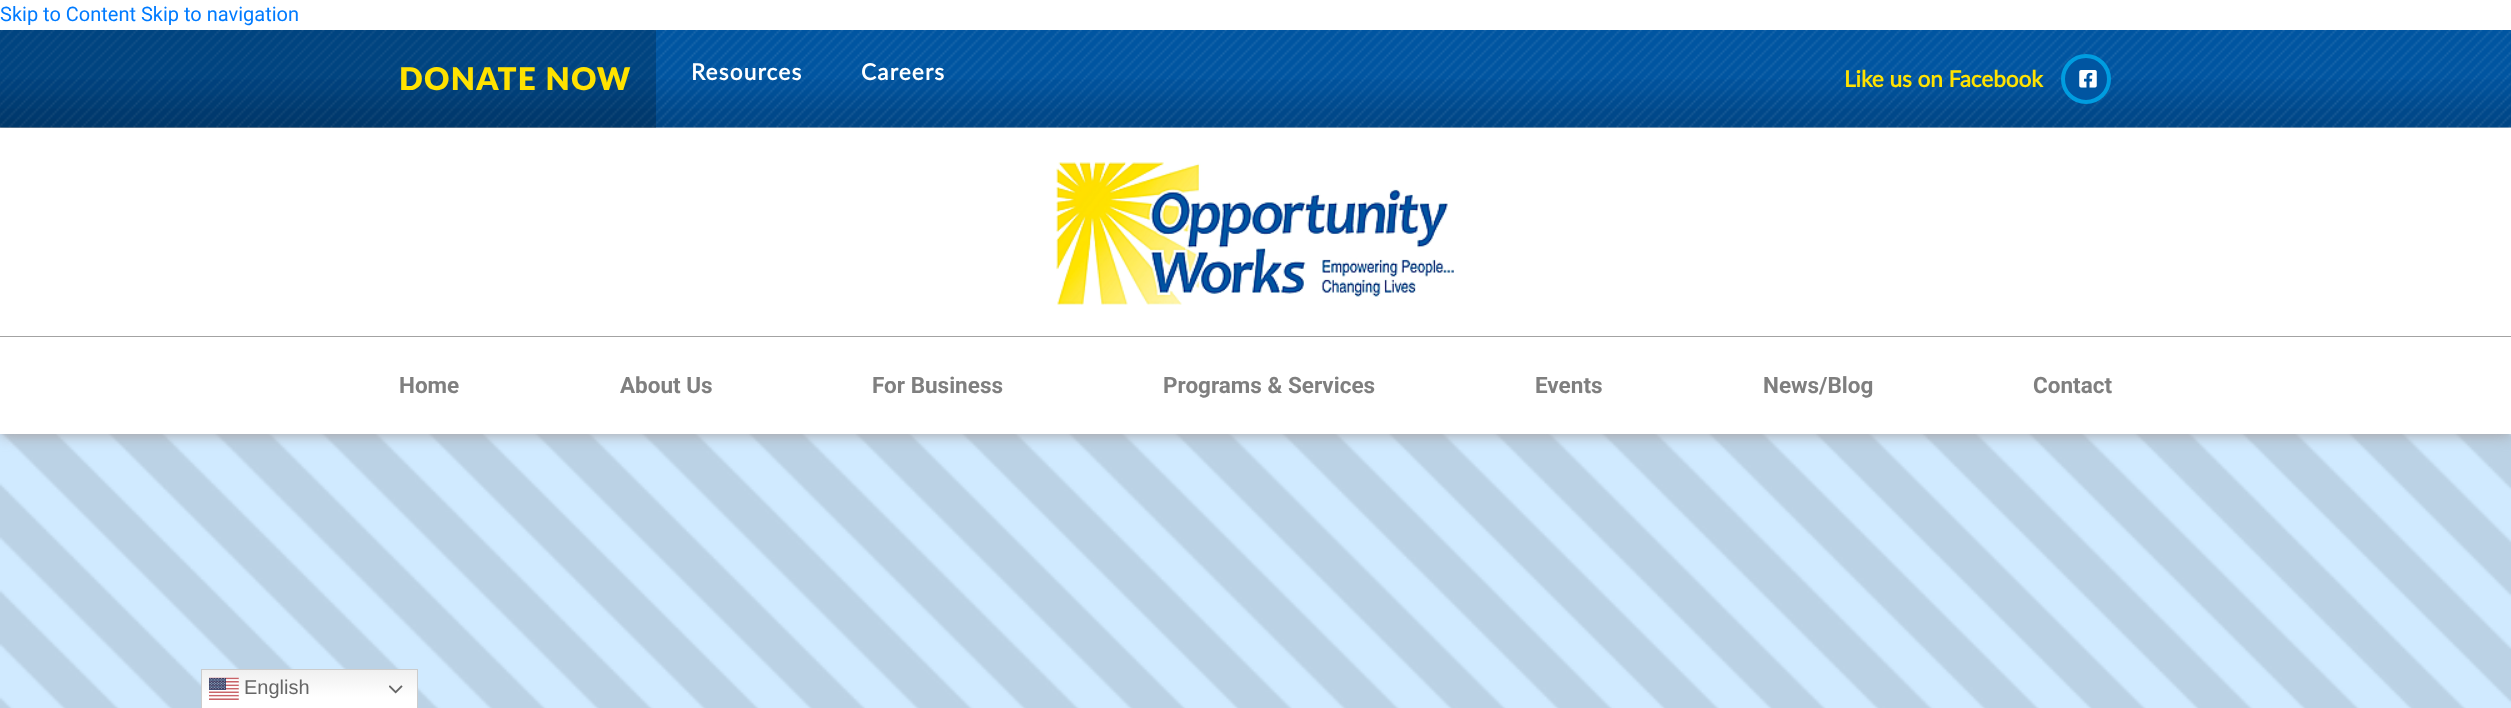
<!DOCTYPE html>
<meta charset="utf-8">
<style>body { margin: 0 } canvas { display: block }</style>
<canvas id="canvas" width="2511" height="708"></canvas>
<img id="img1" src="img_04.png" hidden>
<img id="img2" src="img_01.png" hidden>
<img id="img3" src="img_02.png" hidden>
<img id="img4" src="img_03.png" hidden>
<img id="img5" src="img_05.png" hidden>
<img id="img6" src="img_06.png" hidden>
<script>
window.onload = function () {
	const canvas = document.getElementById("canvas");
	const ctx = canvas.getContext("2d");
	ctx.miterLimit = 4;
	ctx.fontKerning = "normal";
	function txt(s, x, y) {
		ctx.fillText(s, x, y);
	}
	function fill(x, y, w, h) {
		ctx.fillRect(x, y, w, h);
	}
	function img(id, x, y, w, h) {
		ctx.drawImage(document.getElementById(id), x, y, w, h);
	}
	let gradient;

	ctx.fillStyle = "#FFFFFF";
	fill(0, 0, 2511, 708);
	img("img1", 0, 434, 2511, 274);
	ctx.save();
	ctx.beginPath();
	ctx.moveTo(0, 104);
	ctx.lineTo(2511, 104);
	ctx.lineTo(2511, 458);
	ctx.lineTo(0, 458);
	ctx.closePath();
	ctx.moveTo(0, 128);
	ctx.lineTo(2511, 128);
	ctx.lineTo(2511, 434);
	ctx.lineTo(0, 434);
	ctx.closePath();
	ctx.clip("evenodd");
	ctx.fillStyle = "#A29A9A";
	ctx.filter = "blur(7.5px)";
	ctx.beginPath();
	ctx.rect(0, 128, 2511, 306);
	ctx.fill();
	ctx.filter = "none";
	ctx.restore();
	img("img2", 0, 30, 2511, 98);
	ctx.fillStyle = "rgba(0, 0, 0, 0.2)";
	fill(0, 30, 656, 98);
	ctx.fillStyle = "#0055A1";
	ctx.beginPath();
	ctx.arc(2086, 79, 23, 0, Math.PI * 2);
	ctx.fill();
	ctx.strokeStyle = "#009DE0";
	ctx.lineWidth = 4;
	ctx.stroke();
	img("img3", 2079, 70, 18, 18);
	ctx.fillStyle = "#A3A3A3";
	fill(0, 336, 2511, 1);
	img("img4", 1056, 162, 398, 143);
	gradient = ctx.createLinearGradient(309, 669, 309, 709);
	gradient.addColorStop(0, "#EFEFEF");
	gradient.addColorStop(0.7, "#FFFFFF");
	ctx.fillStyle = gradient;
	fill(202, 670, 215, 38);
	ctx.strokeStyle = "#CCCCCC";
	ctx.lineWidth = 1;
	ctx.strokeRect(201.5, 669.5, 216, 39);
	img("img5", 209, 677, 30, 23);
	img("img6", 389, 685, 14, 9);
	ctx.font = "20px Roboto";
	ctx.fillStyle = "#007BFF";
	txt("Skip to Content Skip to navigation", 0, 21);
	ctx.letterSpacing = "1.25px";
	ctx.font = "bold 22.5px Lato";
	ctx.fillStyle = "#FFFFFF";
	txt("Resources", 691, 80);
	txt("Careers", 861, 80);
	ctx.font = "900 31.25px Lato";
	ctx.fillStyle = "#FFE200";
	txt("DONATE NOW", 399, 90);
	ctx.letterSpacing = "0px";
	ctx.font = "bold 22.5px Lato";
	txt("Like us on Facebook", 1844, 87);
	ctx.font = "bold 22.5px Roboto";
	ctx.fillStyle = "#7F7F7F";
	txt("Home", 399, 393);
	txt("About Us", 620, 393);
	txt("For Business", 872, 393);
	txt("Programs & Services", 1163, 393);
	txt("Events", 1535, 393);
	txt("News/Blog", 1763, 393);
	txt("Contact", 2033, 393);
	ctx.font = "20px Liberation Sans";
	ctx.fillStyle = "#666666";
	txt("English", 244, 694);
};
</script>
